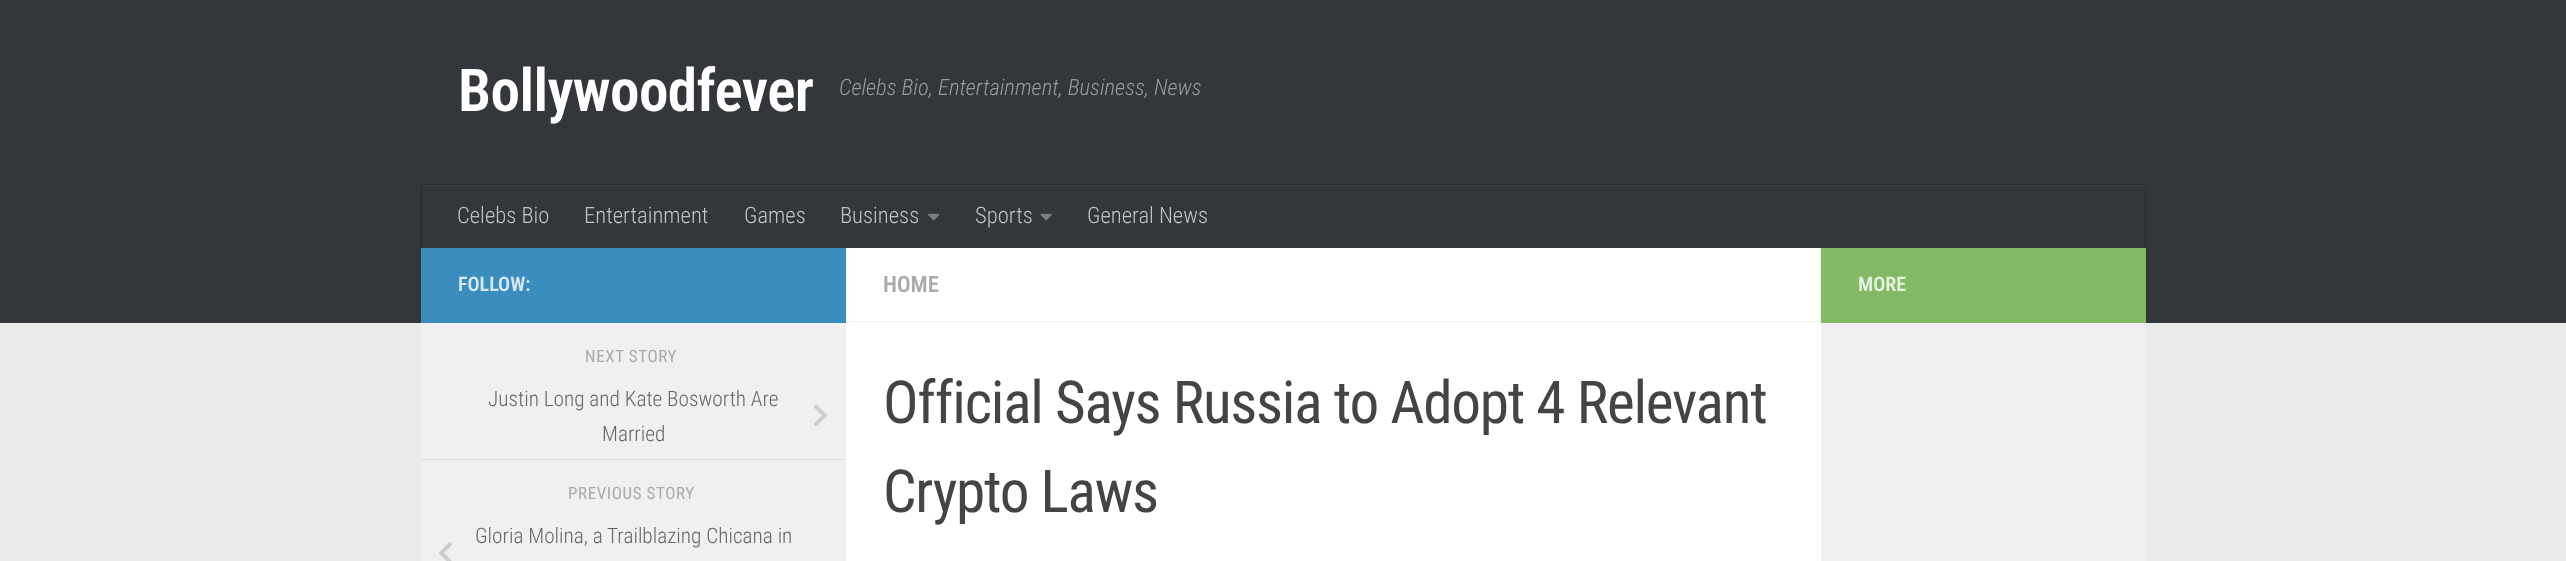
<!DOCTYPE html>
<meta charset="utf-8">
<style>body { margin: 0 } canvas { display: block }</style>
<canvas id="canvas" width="2566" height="561"></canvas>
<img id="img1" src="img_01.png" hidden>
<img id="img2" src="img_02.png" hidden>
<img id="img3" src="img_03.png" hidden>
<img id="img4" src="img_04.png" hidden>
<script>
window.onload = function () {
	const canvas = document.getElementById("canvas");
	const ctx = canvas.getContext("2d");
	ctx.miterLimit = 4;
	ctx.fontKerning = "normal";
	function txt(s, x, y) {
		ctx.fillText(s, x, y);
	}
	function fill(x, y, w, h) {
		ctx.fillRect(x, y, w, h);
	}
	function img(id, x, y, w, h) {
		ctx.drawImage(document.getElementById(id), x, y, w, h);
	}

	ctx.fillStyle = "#EAEAEA";
	fill(0, 0, 2566, 561);
	ctx.fillStyle = "#33363B";
	fill(0, 0, 2566, 323);
	ctx.fillStyle = "#3D4045";
	fill(421, 185, 1725, 1);
	ctx.fillStyle = "#292B2F";
	ctx.beginPath();
	ctx.moveTo(421, 184);
	ctx.lineTo(421, 246);
	ctx.lineTo(421, 185);
	ctx.lineTo(2146, 185);
	ctx.lineTo(2146, 184);
	ctx.closePath();
	ctx.fill();
	fill(2145, 185, 1, 63);
	ctx.fillStyle = "#343639";
	fill(2145, 185, 1, 1);
	ctx.fillStyle = "#292B2F";
	fill(421, 185, 1, 63);
	ctx.fillStyle = "#343639";
	fill(421, 185, 1, 1);
	img("img1", 928, 213, 12, 8);
	img("img2", 1040, 213, 12, 8);
	ctx.fillStyle = "#FFFFFF";
	fill(846, 248, 975, 313);
	ctx.fillStyle = "#3B8DBD";
	fill(421, 248, 425, 75);
	ctx.fillStyle = "#F0F0F0";
	fill(421, 323, 425, 238);
	ctx.fillStyle = "#DDDDDD";
	fill(421, 459, 425, 1);
	img("img3", 814, 404, 13, 23);
	img("img4", 439, 542, 13, 19);
	ctx.fillStyle = "#EEEEEE";
	fill(846, 321, 975, 1);
	ctx.fillStyle = "#82B965";
	fill(1821, 248, 325, 75);
	ctx.fillStyle = "#F0F0F0";
	fill(1821, 323, 325, 238);
	ctx.letterSpacing = "-0.6px";
	ctx.font = "600 59.25px Roboto Condensed";
	ctx.fillStyle = "#FFFFFF";
	txt("Bollywoodfever", 458, 111);
	ctx.letterSpacing = "0px";
	ctx.font = "italic 300 22.6px Roboto Condensed";
	ctx.fillStyle = "#999B9D";
	txt("Celebs Bio, Entertainment, Business, News", 839, 95);
	ctx.font = "300 22.6px Roboto Condensed";
	ctx.fillStyle = "#C2C3C4";
	txt("Celebs Bio", 457, 223);
	txt("Entertainment", 584, 223);
	txt("Games", 744, 223);
	txt("Business", 840, 223);
	txt("Sports", 975, 223);
	txt("General News", 1087, 223);
	ctx.font = "600 20px Roboto Condensed";
	ctx.fillStyle = "#D8E8F2";
	txt("FOLLOW:", 458, 291);
	ctx.letterSpacing = "0.6px";
	ctx.font = "17px Roboto Condensed";
	ctx.fillStyle = "#AAAAAA";
	txt("NEXT STORY", 585, 362);
	ctx.letterSpacing = "0px";
	ctx.font = "300 21.25px Roboto Condensed";
	ctx.fillStyle = "#666666";
	txt("Justin Long and Kate Bosworth Are", 488, 406);
	txt("Married", 602, 441);
	ctx.letterSpacing = "0.6px";
	ctx.font = "17px Roboto Condensed";
	ctx.fillStyle = "#AAAAAA";
	txt("PREVIOUS STORY", 568, 499);
	ctx.letterSpacing = "0px";
	ctx.font = "300 21.25px Roboto Condensed";
	ctx.fillStyle = "#666666";
	txt("Gloria Molina, a Trailblazing Chicana in", 475, 543);
	ctx.font = "600 22.6px Roboto Condensed";
	ctx.fillStyle = "#AAAAAA";
	txt("HOME", 883, 292);
	ctx.letterSpacing = "-1.25px";
	ctx.font = "59.25px Roboto Condensed";
	ctx.fillStyle = "#444444";
	txt("Official Says Russia to Adopt 4 Relevant", 883, 423);
	txt("Crypto Laws", 883, 512);
	ctx.letterSpacing = "0px";
	ctx.font = "600 20px Roboto Condensed";
	ctx.fillStyle = "#E6F1E0";
	txt("MORE", 1858, 291);
};
</script>
